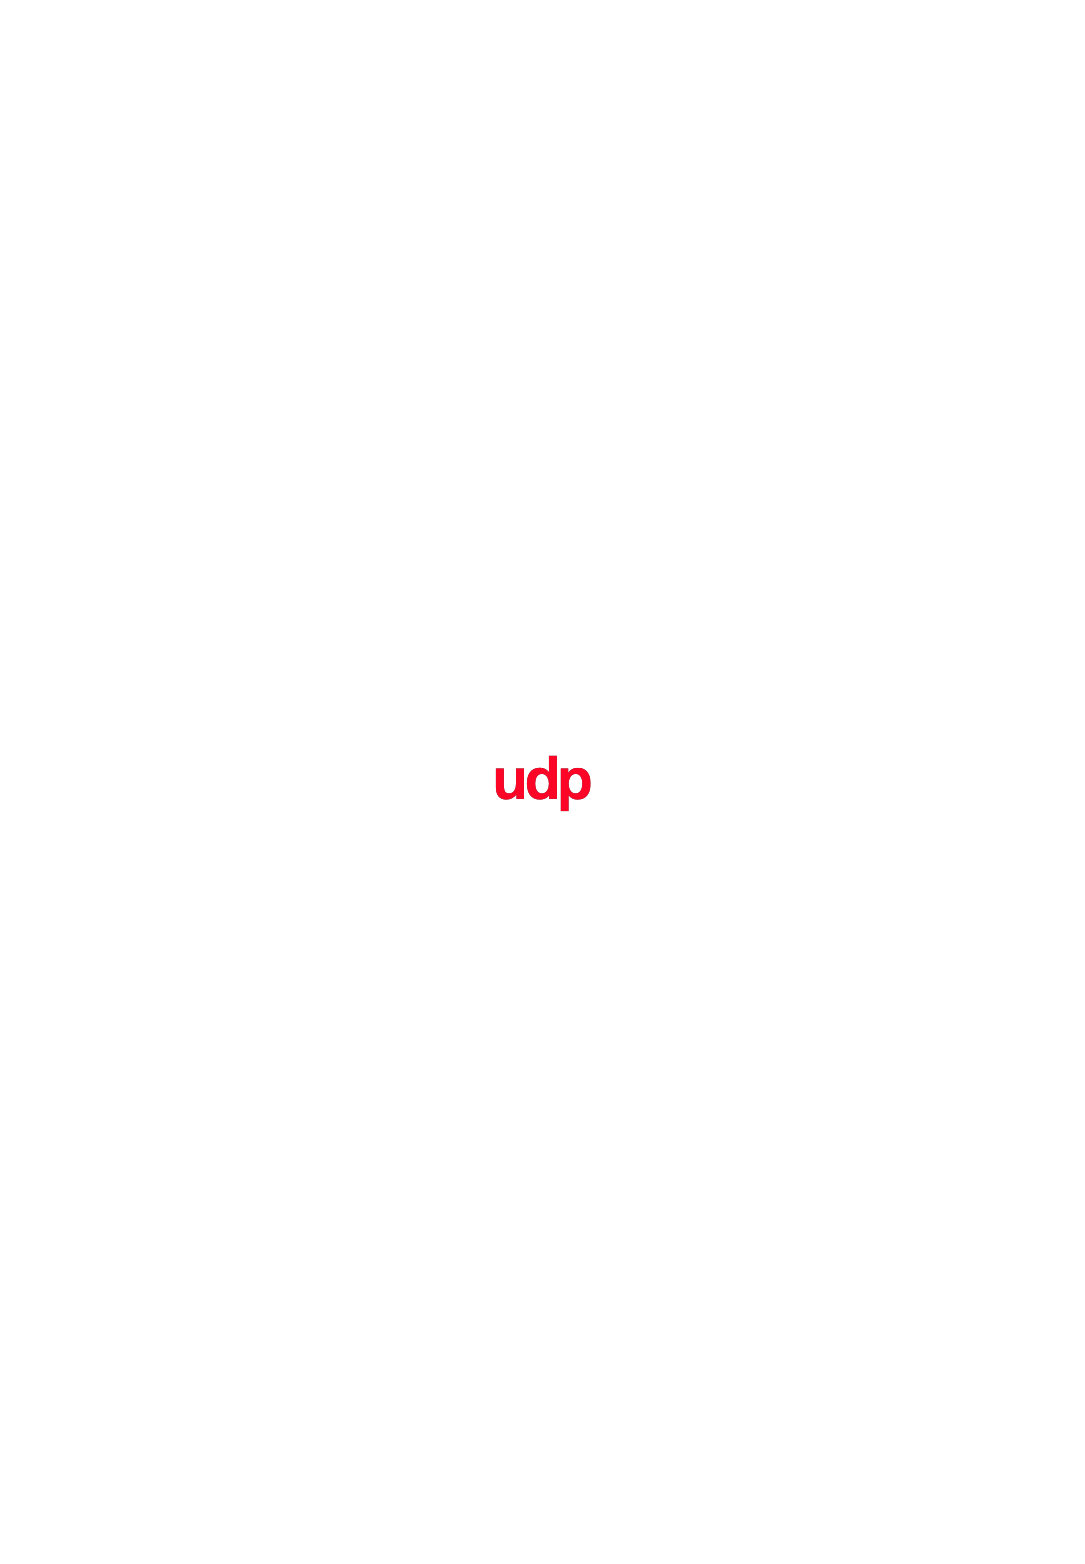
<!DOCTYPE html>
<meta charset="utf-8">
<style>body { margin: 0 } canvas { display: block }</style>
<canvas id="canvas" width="1085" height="1564"></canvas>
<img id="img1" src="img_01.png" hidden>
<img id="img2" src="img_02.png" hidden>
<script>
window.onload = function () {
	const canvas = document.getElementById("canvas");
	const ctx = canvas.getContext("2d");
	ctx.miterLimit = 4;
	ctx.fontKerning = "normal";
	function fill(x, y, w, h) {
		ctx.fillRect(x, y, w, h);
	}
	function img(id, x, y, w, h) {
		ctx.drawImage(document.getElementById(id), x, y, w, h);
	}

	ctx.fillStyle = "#FFFFFF";
	fill(0, 0, 1085, 1564);
	img("img1", 495, 755, 96, 57);
	img("img2", 495, 755, 96, 57);
};
</script>
